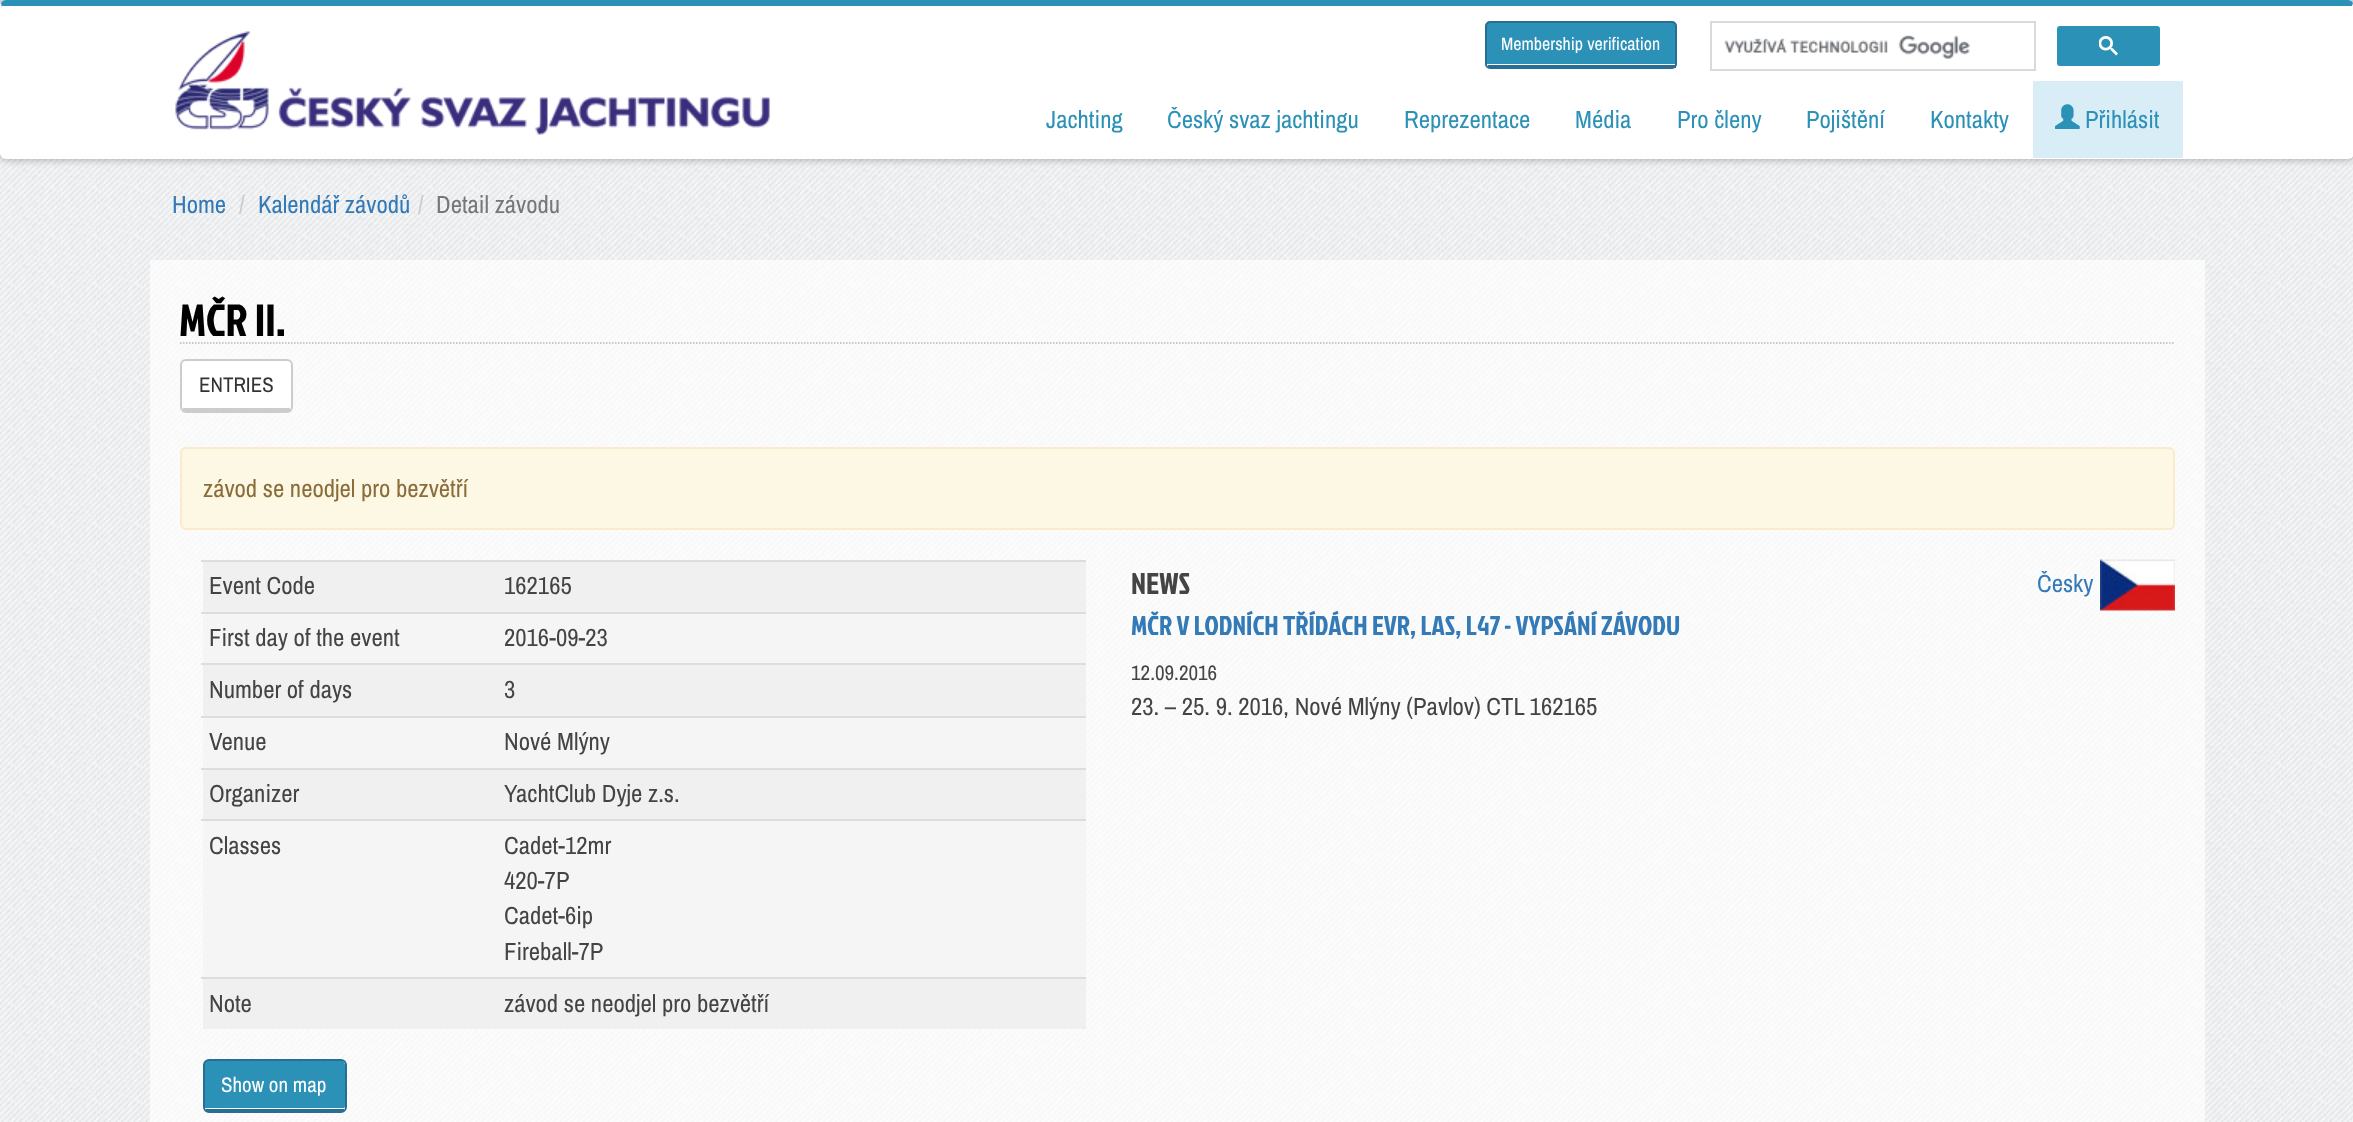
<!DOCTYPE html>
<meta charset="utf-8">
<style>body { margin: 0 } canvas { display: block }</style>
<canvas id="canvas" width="2353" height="1122"></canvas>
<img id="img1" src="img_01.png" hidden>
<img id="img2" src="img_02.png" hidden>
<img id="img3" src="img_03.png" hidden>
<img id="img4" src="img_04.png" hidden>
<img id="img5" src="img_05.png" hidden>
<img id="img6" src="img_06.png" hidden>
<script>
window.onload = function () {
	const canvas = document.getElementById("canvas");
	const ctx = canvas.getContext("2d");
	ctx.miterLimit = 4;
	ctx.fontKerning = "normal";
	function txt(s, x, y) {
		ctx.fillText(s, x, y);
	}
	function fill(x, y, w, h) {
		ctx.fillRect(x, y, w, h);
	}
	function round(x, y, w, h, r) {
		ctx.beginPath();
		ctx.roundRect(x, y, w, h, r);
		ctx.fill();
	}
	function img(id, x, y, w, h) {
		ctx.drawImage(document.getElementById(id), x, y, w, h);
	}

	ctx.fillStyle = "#FFFFFF";
	fill(0, 0, 2353, 1122);
	img("img1", 0, 0, 2353, 1122);
	ctx.fillStyle = "rgba(0, 0, 0, 0.35)";
	ctx.filter = "blur(4.5px)";
	ctx.beginPath();
	ctx.roundRect(0, 0, 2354, 159, 6);
	ctx.fill();
	ctx.filter = "none";
	ctx.fillStyle = "#FFFFFF";
	round(0, 0, 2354, 159, 6);
	ctx.fillStyle = "#2C91B7";
	ctx.beginPath();
	ctx.moveTo(6, 0);
	ctx.bezierCurveTo(4, 0, 2, 1, 1, 3);
	ctx.lineTo(2, 8);
	ctx.lineTo(2, 6);
	ctx.lineTo(2352, 6);
	ctx.lineTo(2353, 3);
	ctx.bezierCurveTo(2352, 1, 2350, 0, 2348, 0);
	ctx.closePath();
	ctx.fill();
	img("img2", 175, 31, 595, 104);
	ctx.beginPath();
	ctx.moveTo(1490, 22);
	ctx.lineTo(1672, 22);
	ctx.bezierCurveTo(1674, 22, 1676, 24, 1676, 26);
	ctx.lineTo(1676, 64);
	ctx.lineTo(1486, 64);
	ctx.lineTo(1486, 26);
	ctx.bezierCurveTo(1486, 24, 1488, 22, 1490, 22);
	ctx.closePath();
	ctx.fill();
	ctx.beginPath();
	ctx.roundRect(1486, 22, 190, 46, 4);
	ctx.strokeStyle = "#286D93";
	ctx.lineWidth = 2;
	ctx.stroke();
	ctx.fillStyle = "#286D93";
	fill(1488, 65, 188, 3);
	ctx.strokeStyle = "#D9D9D9";
	ctx.strokeRect(1711, 22, 324, 48);
	img("img3", 1724, 35, 246, 24);
	ctx.fillStyle = "#2C91B7";
	ctx.beginPath();
	ctx.roundRect(2058, 27, 101, 38, 2);
	ctx.fill();
	ctx.strokeStyle = "#2C91B7";
	ctx.stroke();
	img("img4", 2099, 36, 19, 20);
	ctx.fillStyle = "#D9EDF7";
	fill(2033, 81, 150, 77);
	img("img5", 2055, 104, 25, 25);
	ctx.fillStyle = "rgba(255, 255, 255, 0.7)";
	fill(150, 260, 2055, 862);
	ctx.beginPath();
	ctx.moveTo(180, 343);
	ctx.lineTo(2175, 343);
	ctx.strokeStyle = "#B8B8B8";
	ctx.lineWidth = 1.5;
	ctx.setLineDash([1.5, 1.5]);
	ctx.stroke();
	ctx.fillStyle = "#FFFFFF";
	ctx.beginPath();
	ctx.moveTo(186, 360);
	ctx.lineTo(286, 360);
	ctx.bezierCurveTo(289, 360, 291, 362, 291, 364);
	ctx.lineTo(291, 406);
	ctx.bezierCurveTo(291, 407, 289, 408, 286, 408);
	ctx.lineTo(186, 408);
	ctx.bezierCurveTo(184, 408, 182, 407, 182, 406);
	ctx.lineTo(182, 364);
	ctx.bezierCurveTo(182, 362, 184, 360, 186, 360);
	ctx.closePath();
	ctx.fill();
	ctx.beginPath();
	ctx.roundRect(181, 360, 111, 52, 5);
	ctx.strokeStyle = "#CCCCCC";
	ctx.lineWidth = 2;
	ctx.setLineDash([]);
	ctx.stroke();
	ctx.fillStyle = "#CCCCCC";
	fill(183, 408, 107, 3);
	ctx.fillStyle = "#FCF8E3";
	ctx.beginPath();
	ctx.roundRect(181, 448, 1993, 81, 5);
	ctx.fill();
	ctx.strokeStyle = "#FAEBCC";
	ctx.stroke();
	ctx.fillStyle = "#F0F0F0";
	fill(203, 562, 883, 50);
	ctx.fillStyle = "#DDDDDD";
	fill(201, 560, 885, 2);
	ctx.fillStyle = "#F5F5F5";
	fill(203, 614, 883, 49);
	ctx.fillStyle = "#DDDDDD";
	fill(201, 612, 885, 2);
	ctx.fillStyle = "#F0F0F0";
	fill(203, 665, 883, 51);
	ctx.fillStyle = "#DDDDDD";
	fill(201, 663, 885, 2);
	ctx.fillStyle = "#F5F5F5";
	fill(203, 718, 883, 50);
	ctx.fillStyle = "#DDDDDD";
	fill(201, 716, 885, 2);
	ctx.fillStyle = "#F0F0F0";
	fill(203, 770, 883, 49);
	ctx.fillStyle = "#DDDDDD";
	fill(201, 768, 885, 2);
	ctx.fillStyle = "#F5F5F5";
	fill(203, 821, 883, 156);
	ctx.fillStyle = "#DDDDDD";
	fill(201, 819, 885, 2);
	ctx.fillStyle = "#F0F0F0";
	fill(203, 979, 883, 50);
	ctx.fillStyle = "#DDDDDD";
	fill(201, 977, 885, 2);
	ctx.fillStyle = "#2C91B7";
	ctx.beginPath();
	ctx.moveTo(208, 1060);
	ctx.lineTo(340, 1060);
	ctx.bezierCurveTo(343, 1060, 345, 1063, 345, 1065);
	ctx.lineTo(345, 1107);
	ctx.bezierCurveTo(345, 1108, 343, 1108, 340, 1108);
	ctx.lineTo(208, 1108);
	ctx.bezierCurveTo(206, 1108, 204, 1108, 204, 1107);
	ctx.lineTo(204, 1065);
	ctx.bezierCurveTo(204, 1063, 206, 1060, 208, 1060);
	ctx.closePath();
	ctx.fill();
	ctx.beginPath();
	ctx.roundRect(204, 1060, 142, 52, 5);
	ctx.strokeStyle = "#286D93";
	ctx.stroke();
	ctx.fillStyle = "#286D93";
	fill(206, 1109, 138, 2);
	img("img6", 2100, 559, 75, 52);
	ctx.font = "18px Archivo Narrow";
	ctx.fillStyle = "#FFFFFF";
	txt("Membership verification", 1501, 50);
	ctx.font = "24.75px Archivo Narrow";
	ctx.fillStyle = "#2C91B7";
	txt("Jachting", 1046, 128);
	txt("Český svaz jachtingu", 1167, 128);
	txt("Reprezentace", 1404, 128);
	txt("Média", 1575, 128);
	txt("Pro členy", 1677, 128);
	txt("Pojištění", 1806, 128);
	txt("Kontakty", 1930, 128);
	txt("Přihlásit", 2085, 128);
	ctx.fillStyle = "#337AB7";
	txt("Home", 172, 213);
	ctx.fillStyle = "#CCCCCC";
	txt("/", 239, 213);
	ctx.fillStyle = "#337AB7";
	txt("Kalendář závodů", 258, 213);
	ctx.fillStyle = "#CCCCCC";
	txt("/", 418, 213);
	ctx.fillStyle = "#777777";
	txt("Detail závodu", 436, 213);
	ctx.font = "45px Jockey One";
	ctx.fillStyle = "#000000";
	txt("MČR II.", 179, 336);
	ctx.font = "21px Archivo Narrow";
	ctx.fillStyle = "#333333";
	txt("ENTRIES", 199, 392);
	ctx.font = "24.75px Archivo Narrow";
	ctx.fillStyle = "#8A6D3B";
	txt("závod se neodjel pro bezvětří", 203, 497);
	ctx.fillStyle = "#444444";
	txt("Event Code", 209, 594);
	txt("162165", 504, 594);
	txt("First day of the event", 209, 646);
	txt("2016-09-23", 504, 646);
	txt("Number of days", 209, 698);
	txt("3", 504, 698);
	txt("Venue", 209, 750);
	txt("Nové Mlýny", 504, 750);
	txt("Organizer", 209, 802);
	txt("YachtClub Dyje z.s.", 504, 802);
	txt("Classes", 209, 854);
	txt("Cadet-12mr", 504, 854);
	txt("420-7P", 504, 889);
	txt("Cadet-6ip", 504, 924);
	txt("Fireball-7P", 504, 960);
	txt("Note", 209, 1012);
	txt("závod se neodjel pro bezvětří", 504, 1012);
	ctx.font = "21px Archivo Narrow";
	ctx.fillStyle = "#FFFFFF";
	txt("Show on map", 221, 1092);
	ctx.font = "30px Jockey One";
	ctx.fillStyle = "#444444";
	txt("NEWS", 1131, 594);
	ctx.font = "27px Jockey One";
	ctx.fillStyle = "#337AB7";
	txt("MČR V LODNÍCH TŘÍDÁCH EVR, LAS, L47 - VYPSÁNÍ ZÁVODU", 1131, 635);
	ctx.font = "21px Archivo Narrow";
	ctx.fillStyle = "#444444";
	txt("12.09.2016", 1131, 680);
	ctx.font = "24.75px Archivo Narrow";
	txt("23. – 25. 9. 2016, Nové Mlýny (Pavlov) CTL 162165", 1131, 715);
	ctx.fillStyle = "#337AB7";
	txt("Česky", 2037, 592);
};
</script>
